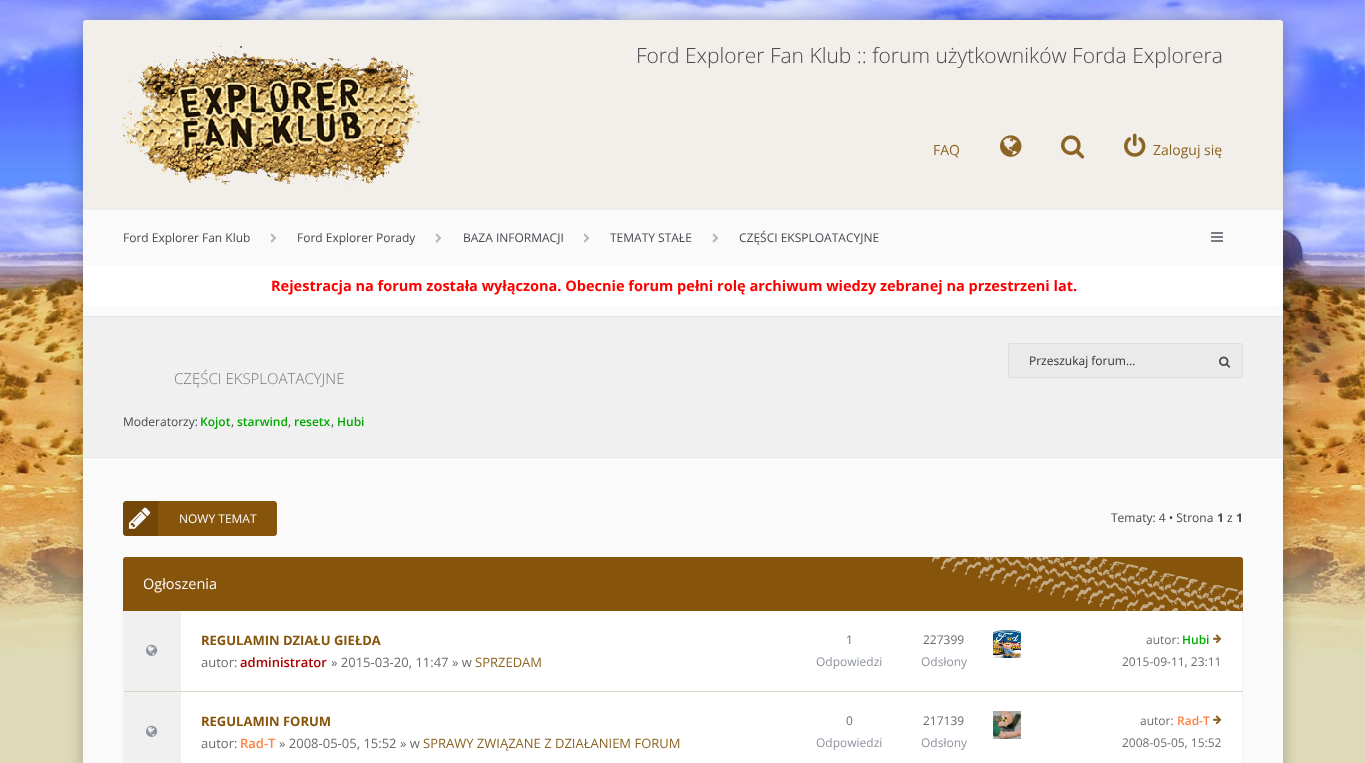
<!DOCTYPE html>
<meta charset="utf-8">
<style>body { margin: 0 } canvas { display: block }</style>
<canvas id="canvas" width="1365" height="763"></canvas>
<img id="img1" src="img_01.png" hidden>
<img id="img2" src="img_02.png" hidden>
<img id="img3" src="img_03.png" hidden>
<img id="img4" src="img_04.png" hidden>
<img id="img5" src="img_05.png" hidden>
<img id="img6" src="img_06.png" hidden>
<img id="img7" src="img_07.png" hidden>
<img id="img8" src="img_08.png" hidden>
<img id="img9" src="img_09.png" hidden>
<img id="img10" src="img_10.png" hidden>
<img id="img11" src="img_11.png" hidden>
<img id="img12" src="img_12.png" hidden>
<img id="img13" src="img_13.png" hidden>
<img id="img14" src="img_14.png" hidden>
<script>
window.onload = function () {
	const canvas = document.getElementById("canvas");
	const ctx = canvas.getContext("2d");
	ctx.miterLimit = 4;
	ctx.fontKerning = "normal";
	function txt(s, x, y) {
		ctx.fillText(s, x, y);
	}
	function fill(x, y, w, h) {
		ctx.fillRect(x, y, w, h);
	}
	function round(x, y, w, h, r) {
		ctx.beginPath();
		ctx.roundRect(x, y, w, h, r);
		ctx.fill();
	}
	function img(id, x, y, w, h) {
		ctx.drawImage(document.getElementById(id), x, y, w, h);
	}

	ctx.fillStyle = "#FFFFFF";
	fill(0, 0, 1365, 763);
	img("img1", 0, 0, 1365, 763);
	ctx.fillStyle = "rgba(0, 0, 0, 0.25)";
	ctx.filter = "blur(7.5px)";
	ctx.beginPath();
	ctx.roundRect(83, 20, 1200, 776, 10);
	ctx.fill();
	ctx.filter = "none";
	ctx.fillStyle = "#FAFAFA";
	round(83, 20, 1200, 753, 10);
	ctx.fillStyle = "#F2EEE9";
	ctx.beginPath();
	ctx.roundRect(83, 20, 1200, 190, [3, 3, 0, 0]);
	ctx.fill();
	img("img2", 123, 46, 299, 140);
	img("img3", 1000, 135, 22, 22);
	img("img4", 1061, 135, 24, 24);
	img("img5", 1124, 133, 22, 24);
	img("img6", 270, 233, 7, 10);
	img("img6", 435, 233, 7, 10);
	img("img6", 583, 233, 7, 10);
	img("img6", 712, 233, 7, 10);
	img("img7", 1211, 232, 12, 10);
	ctx.fillStyle = "#FFFFFF";
	round(83, 265, 1200, 41, 7);
	ctx.fillStyle = "#F0F0F0";
	fill(83, 317, 1200, 140);
	ctx.fillStyle = "#E6E6E6";
	fill(83, 316, 1200, 1);
	fill(83, 457, 1200, 1);
	ctx.fillStyle = "#EAEAEA";
	ctx.beginPath();
	ctx.roundRect(1008, 343, 200, 35, [3, 0, 0, 3]);
	ctx.fill();
	ctx.fillStyle = "rgba(0, 0, 0, 0.05)";
	ctx.beginPath();
	ctx.moveTo(1011, 343);
	ctx.lineTo(1208, 343);
	ctx.lineTo(1208, 378);
	ctx.lineTo(1011, 378);
	ctx.bezierCurveTo(1009, 378, 1008, 377, 1008, 375);
	ctx.lineTo(1008, 346);
	ctx.bezierCurveTo(1008, 344, 1009, 343, 1011, 343);
	ctx.closePath();
	ctx.moveTo(1011, 344);
	ctx.lineTo(1208, 344);
	ctx.lineTo(1208, 377);
	ctx.lineTo(1011, 377);
	ctx.bezierCurveTo(1010, 377, 1009, 376, 1009, 375);
	ctx.lineTo(1009, 346);
	ctx.bezierCurveTo(1009, 345, 1010, 344, 1011, 344);
	ctx.closePath();
	ctx.fill("evenodd");
	ctx.fillStyle = "#EAEAEA";
	ctx.beginPath();
	ctx.roundRect(1208, 343, 35, 35, [0, 3, 3, 0]);
	ctx.fill();
	ctx.fillStyle = "#DEDEDE";
	ctx.beginPath();
	ctx.moveTo(1208, 343);
	ctx.lineTo(1240, 343);
	ctx.bezierCurveTo(1241.5, 343, 1243, 344.5, 1243, 346);
	ctx.lineTo(1243, 375);
	ctx.bezierCurveTo(1243, 376.5, 1241.5, 378, 1240, 378);
	ctx.lineTo(1208, 378);
	ctx.closePath();
	ctx.moveTo(1208, 344);
	ctx.lineTo(1240, 344);
	ctx.bezierCurveTo(1241, 344, 1242, 345, 1242, 346);
	ctx.lineTo(1242, 375);
	ctx.bezierCurveTo(1242, 376, 1241, 377, 1240, 377);
	ctx.lineTo(1208, 377);
	ctx.closePath();
	ctx.fill("evenodd");
	img("img8", 1219, 356, 12, 12);
	ctx.fillStyle = "#86540B";
	ctx.beginPath();
	ctx.roundRect(123.5, 501.5, 153, 34, 2.5);
	ctx.fill();
	ctx.strokeStyle = "#86540B";
	ctx.stroke();
	ctx.fillStyle = "rgba(0, 0, 0, 0.15)";
	ctx.beginPath();
	ctx.roundRect(123, 501, 35, 35, [3, 0, 0, 3]);
	ctx.fill();
	img("img9", 129, 507, 22, 22);
	ctx.fillStyle = "#86540B";
	ctx.beginPath();
	ctx.roundRect(123, 557, 1120, 54, [3, 3, 0, 0]);
	ctx.fill();
	img("img10", 932, 557, 311, 54);
	ctx.fillStyle = "#FFFFFF";
	fill(181, 611, 1061, 80);
	ctx.fillStyle = "#F0F0F0";
	fill(1242, 611, 1, 81);
	ctx.fillStyle = "#DED5C8";
	fill(123, 691, 1120, 1);
	ctx.fillStyle = "#F0F0F0";
	fill(123, 611, 1, 81);
	fill(124, 611, 57, 80);
	img("img11", 146, 644, 12, 12);
	img("img12", 993, 630, 28, 28);
	img("img13", 1213, 634, 9, 10);
	ctx.fillStyle = "#FFFFFF";
	fill(181, 692, 1061, 71);
	ctx.fillStyle = "#F0F0F0";
	ctx.beginPath();
	ctx.moveTo(123, 692);
	ctx.lineTo(1243, 692);
	ctx.lineTo(1243, 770);
	ctx.bezierCurveTo(1243, 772, 1242, 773, 1240, 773);
	ctx.lineTo(126, 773);
	ctx.bezierCurveTo(124, 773, 123, 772, 123, 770);
	ctx.closePath();
	ctx.moveTo(124, 692);
	ctx.lineTo(1242, 692);
	ctx.lineTo(1242, 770);
	ctx.bezierCurveTo(1242, 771, 1241, 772, 1240, 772);
	ctx.lineTo(126, 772);
	ctx.bezierCurveTo(125, 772, 124, 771, 124, 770);
	ctx.closePath();
	ctx.fill("evenodd");
	fill(124, 692, 57, 71);
	img("img11", 146, 725, 12, 12);
	img("img14", 993, 711, 28, 28);
	img("img13", 1213, 715, 9, 10);
	ctx.font = "300 21px Open Sans";
	ctx.fillStyle = "#46494F";
	txt("Ford Explorer Fan Klub :: forum użytkowników Forda Explorera", 636, 63);
	ctx.font = "14px Open Sans";
	ctx.fillStyle = "#8C6524";
	txt("FAQ", 933, 155);
	txt("Zaloguj się", 1153, 155);
	ctx.font = "12px Open Sans";
	ctx.fillStyle = "#46494F";
	txt("Ford Explorer Fan Klub", 123, 242);
	txt("Ford Explorer Porady", 297, 242);
	txt("BAZA INFORMACJI", 463, 242);
	txt("TEMATY STAŁE", 610, 242);
	txt("CZĘŚCI EKSPLOATACYJNE", 739, 242);
	ctx.font = "bold 14.52px Open Sans";
	ctx.fillStyle = "#FF0000";
	txt("Rejestracja na forum została wyłączona. Obecnie forum pełni rolę archiwum wiedzy zebranej na przestrzeni lat.", 271, 291);
	ctx.font = "12px Open Sans";
	ctx.fillStyle = "#333333";
	txt("Przeszukaj forum…", 1029, 365);
	ctx.font = "300 15px Open Sans";
	ctx.fillStyle = "#777777";
	txt("CZĘŚCI EKSPLOATACYJNE", 174, 384);
	ctx.font = "12px Open Sans";
	ctx.fillStyle = "#46494F";
	txt("Moderatorzy:", 123, 426);
	ctx.font = "600 12px Open Sans";
	ctx.fillStyle = "#00AA00";
	txt("Kojot", 200, 426);
	ctx.font = "12px Open Sans";
	ctx.fillStyle = "#46494F";
	txt(",", 231, 426);
	ctx.font = "600 12px Open Sans";
	ctx.fillStyle = "#00AA00";
	txt("starwind", 237, 426);
	ctx.font = "12px Open Sans";
	ctx.fillStyle = "#46494F";
	txt(",", 288, 426);
	ctx.font = "600 12px Open Sans";
	ctx.fillStyle = "#00AA00";
	txt("resetx", 294, 426);
	ctx.font = "12px Open Sans";
	ctx.fillStyle = "#46494F";
	txt(",", 331, 426);
	ctx.font = "600 12px Open Sans";
	ctx.fillStyle = "#00AA00";
	txt("Hubi", 337, 426);
	ctx.font = "12px Open Sans";
	ctx.fillStyle = "#FAFAFA";
	txt("NOWY TEMAT", 179, 523);
	ctx.fillStyle = "#46494F";
	txt("Tematy: 4 • Strona", 1111, 522);
	ctx.font = "bold 12px Open Sans";
	txt("1", 1217, 522);
	ctx.font = "12px Open Sans";
	txt("z", 1227, 522);
	ctx.font = "bold 12px Open Sans";
	txt("1", 1236, 522);
	ctx.font = "14.5px Open Sans";
	ctx.fillStyle = "#FAFAFA";
	txt("Ogłoszenia", 143, 589);
	ctx.font = "bold 13px Open Sans";
	ctx.fillStyle = "#86540B";
	txt("REGULAMIN DZIAŁU GIEŁDA", 201, 645);
	ctx.font = "13px Open Sans";
	ctx.fillStyle = "#6C6C6C";
	txt("autor:", 201, 667);
	ctx.font = "600 13px Open Sans";
	ctx.fillStyle = "#AA0000";
	txt("administrator", 240, 667);
	ctx.font = "13px Open Sans";
	ctx.fillStyle = "#6C6C6C";
	txt("» 2015-03-20, 11:47 » w", 331, 667);
	ctx.fillStyle = "#8C6524";
	txt("SPRZEDAM", 475, 667);
	ctx.font = "12px Open Sans";
	ctx.fillStyle = "#6C6C6C";
	txt("1", 846, 644);
	ctx.fillStyle = "#8D939E";
	txt("Odpowiedzi", 816, 666);
	ctx.fillStyle = "#6C6C6C";
	txt("227399", 923, 644);
	ctx.fillStyle = "#8D939E";
	txt("Odsłony", 921, 666);
	ctx.fillStyle = "#6C6C6C";
	txt("autor:", 1146, 644);
	ctx.font = "600 12px Open Sans";
	ctx.fillStyle = "#00AA00";
	txt("Hubi", 1182, 644);
	ctx.font = "12px Open Sans";
	ctx.fillStyle = "#6C6C6C";
	txt("2015-09-11, 23:11", 1122, 666);
	ctx.font = "bold 13px Open Sans";
	ctx.fillStyle = "#86540B";
	txt("REGULAMIN FORUM", 201, 726);
	ctx.font = "13px Open Sans";
	ctx.fillStyle = "#6C6C6C";
	txt("autor:", 201, 748);
	ctx.font = "600 13px Open Sans";
	ctx.fillStyle = "#FF8040";
	txt("Rad-T", 240, 748);
	ctx.font = "13px Open Sans";
	ctx.fillStyle = "#6C6C6C";
	txt("» 2008-05-05, 15:52 » w", 279, 748);
	ctx.fillStyle = "#8C6524";
	txt("SPRAWY ZWIĄZANE Z DZIAŁANIEM FORUM", 423, 748);
	ctx.font = "12px Open Sans";
	ctx.fillStyle = "#6C6C6C";
	txt("0", 846, 725);
	ctx.fillStyle = "#8D939E";
	txt("Odpowiedzi", 816, 747);
	ctx.fillStyle = "#6C6C6C";
	txt("217139", 923, 725);
	ctx.fillStyle = "#8D939E";
	txt("Odsłony", 921, 747);
	ctx.fillStyle = "#6C6C6C";
	txt("autor:", 1140, 725);
	ctx.font = "600 12px Open Sans";
	ctx.fillStyle = "#FF8040";
	txt("Rad-T", 1177, 725);
	ctx.font = "12px Open Sans";
	ctx.fillStyle = "#6C6C6C";
	txt("2008-05-05, 15:52", 1122, 747);
};
</script>
